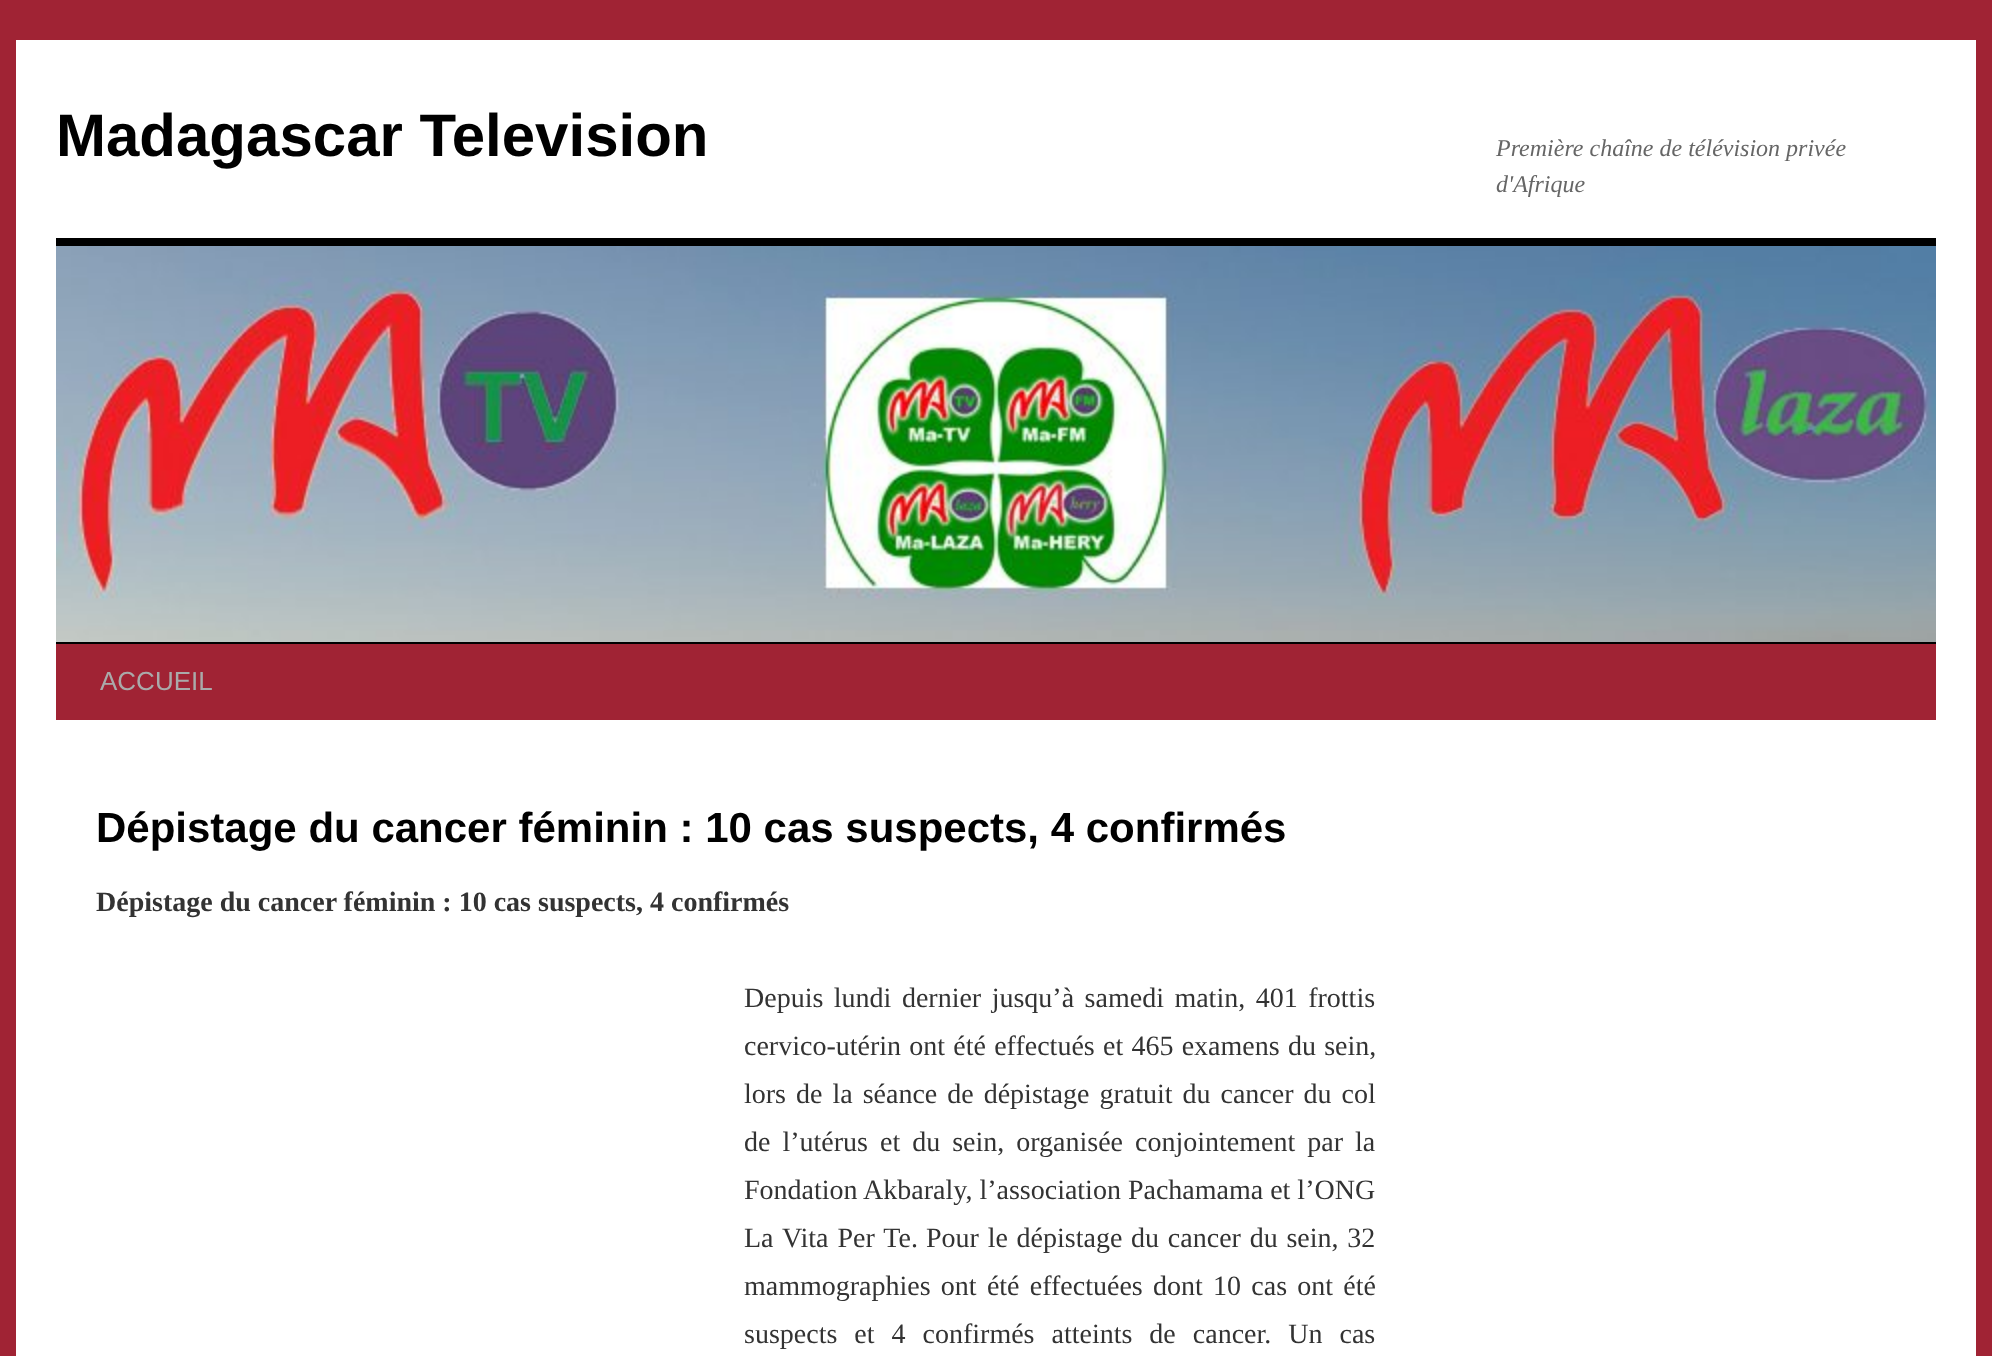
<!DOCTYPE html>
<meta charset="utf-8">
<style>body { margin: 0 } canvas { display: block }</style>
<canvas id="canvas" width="1992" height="1356"></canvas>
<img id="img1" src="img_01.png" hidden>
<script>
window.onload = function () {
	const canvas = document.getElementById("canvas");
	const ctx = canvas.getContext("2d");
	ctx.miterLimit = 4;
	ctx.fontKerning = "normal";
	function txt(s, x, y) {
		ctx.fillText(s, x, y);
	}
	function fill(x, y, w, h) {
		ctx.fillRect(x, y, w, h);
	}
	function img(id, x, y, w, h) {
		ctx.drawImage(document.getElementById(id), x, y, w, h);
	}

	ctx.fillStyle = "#A02334";
	fill(0, 0, 1992, 1356);
	ctx.fillStyle = "#FFFFFF";
	fill(16, 40, 1960, 1316);
	ctx.fillStyle = "#000000";
	fill(56, 238, 1880, 8);
	fill(56, 642, 1880, 2);
	img("img1", 56, 246, 1880, 396);
	ctx.fillStyle = "#A02334";
	fill(56, 644, 1880, 76);
	ctx.font = "bold 60px Liberation Sans";
	ctx.fillStyle = "#000000";
	txt("Madagascar Television", 56, 156);
	ctx.font = "italic 24px Liberation Serif";
	ctx.fillStyle = "#666666";
	txt("Première chaîne de télévision privée", 1496, 156);
	txt("d'Afrique", 1496, 192);
	ctx.font = "26px Liberation Sans";
	ctx.fillStyle = "#AAAAAA";
	txt("ACCUEIL", 100, 690);
	ctx.font = "bold 42px Liberation Sans";
	ctx.fillStyle = "#000000";
	txt("Dépistage du cancer féminin : 10 cas suspects, 4 confirmés", 96, 842);
	ctx.font = "bold 28px Liberation Serif";
	ctx.fillStyle = "#333333";
	txt("Dépistage du cancer féminin : 10 cas suspects, 4 confirmés", 96, 911);
	ctx.wordSpacing = "3.5px";
	ctx.font = "28px Liberation Serif";
	txt("Depuis lundi dernier jusqu’à samedi matin, 401 frottis", 744, 1007);
	ctx.wordSpacing = "1.25px";
	txt("cervico-utérin ont été effectués et 465 examens du sein,", 744, 1055);
	ctx.wordSpacing = "3px";
	txt("lors de la séance de dépistage gratuit du cancer du col", 744, 1103);
	ctx.wordSpacing = "5px";
	txt("de l’utérus et du sein, organisée conjointement par la", 744, 1151);
	ctx.wordSpacing = "0px";
	txt("Fondation Akbaraly, l’association Pachamama et l’ONG", 744, 1199);
	ctx.wordSpacing = "2px";
	txt("La Vita Per Te.", 744, 1247);
	ctx.wordSpacing = "1.75px";
	txt("Pour le dépistage du cancer du sein, 32", 926, 1247);
	ctx.wordSpacing = "3.25px";
	txt("mammographies ont été effectuées dont 10 cas ont été", 744, 1295);
	ctx.wordSpacing = "10px";
	txt("suspects et 4 confirmés atteints de cancer. Un cas", 744, 1343);
};
</script>
